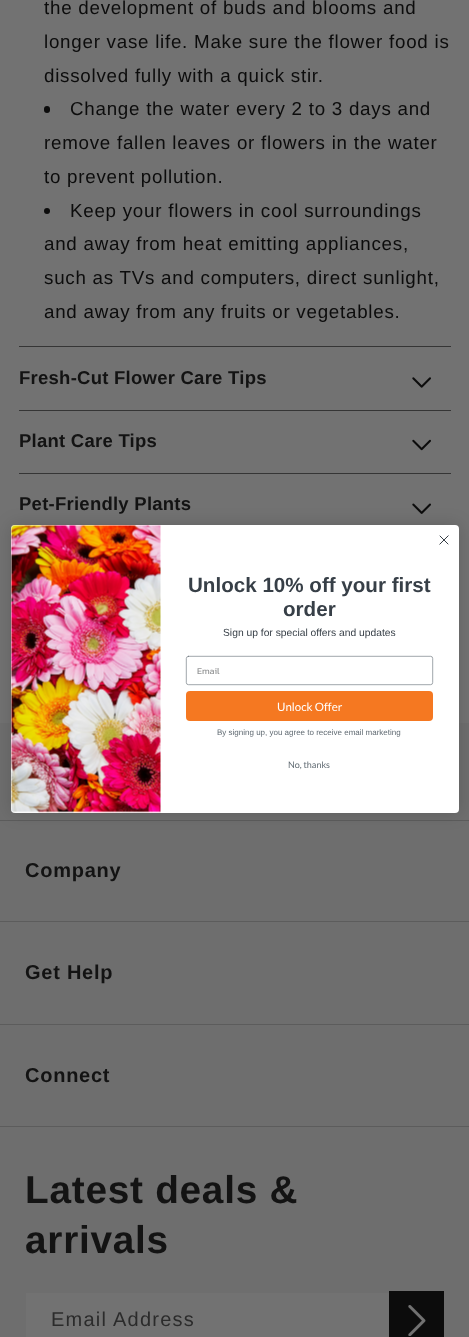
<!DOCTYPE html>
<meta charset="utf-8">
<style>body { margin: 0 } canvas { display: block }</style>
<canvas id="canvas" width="469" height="1337"></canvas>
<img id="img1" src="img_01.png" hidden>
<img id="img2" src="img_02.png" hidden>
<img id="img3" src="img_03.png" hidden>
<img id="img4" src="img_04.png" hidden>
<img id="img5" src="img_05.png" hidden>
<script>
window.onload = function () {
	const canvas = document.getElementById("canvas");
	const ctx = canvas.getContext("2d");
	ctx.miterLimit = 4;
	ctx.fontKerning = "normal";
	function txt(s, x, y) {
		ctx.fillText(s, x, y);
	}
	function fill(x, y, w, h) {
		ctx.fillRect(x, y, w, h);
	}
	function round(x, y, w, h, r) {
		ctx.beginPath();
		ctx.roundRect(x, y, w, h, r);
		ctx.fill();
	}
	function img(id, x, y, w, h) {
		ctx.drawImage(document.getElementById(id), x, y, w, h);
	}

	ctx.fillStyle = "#727272";
	fill(0, 0, 469, 1337);
	ctx.fillStyle = "#0C0C0C";
	round(44, 106, 6, 7, 3);
	ctx.beginPath();
	ctx.arc(47, 211, 3, 0, Math.PI * 2);
	ctx.fill();
	ctx.fillStyle = "#353535";
	fill(19, 346, 432, 1);
	fill(19, 410, 432, 1);
	img("img1", 412, 377, 19, 11);
	fill(19, 473, 432, 1);
	img("img2", 412, 439, 19, 12);
	img("img3", 412, 503, 19, 11);
	ctx.fillStyle = "#6E6E6E";
	fill(0, 723, 469, 614);
	ctx.fillStyle = "#5C5C5C";
	fill(0, 820, 469, 1);
	ctx.fillStyle = "rgba(0, 0, 0, 0.15)";
	ctx.filter = "blur(8.5px)";
	ctx.beginPath();
	ctx.roundRect(11, 525, 448, 288, 4);
	ctx.fill();
	ctx.filter = "none";
	ctx.fillStyle = "#FFFFFF";
	round(11, 525, 448, 288, 4);
	ctx.beginPath();
	ctx.moveTo(440, 536);
	ctx.lineTo(448, 544);
	ctx.moveTo(440, 544);
	ctx.lineTo(448, 536);
	ctx.closePath();
	ctx.strokeStyle = "#373F47";
	ctx.lineCap = "round";
	ctx.lineJoin = "round";
	ctx.stroke();
	img("img4", 11, 525, 150, 288);
	ctx.beginPath();
	ctx.roundRect(186.3, 656.3, 246.4, 28.4, 2.2);
	ctx.strokeStyle = "#606A72";
	ctx.lineWidth = 0.6;
	ctx.lineJoin = "miter";
	ctx.stroke();
	ctx.fillStyle = "#F57821";
	round(186, 691, 247, 30, 4);
	ctx.fillStyle = "#5C5C5C";
	fill(0, 921, 469, 1);
	fill(0, 1024, 469, 1);
	fill(0, 1126, 469, 1);
	ctx.fillStyle = "#727272";
	fill(26, 1293, 363, 44);
	ctx.fillStyle = "#0C0C0C";
	fill(389, 1291, 55, 46);
	img("img5", 408, 1305, 18, 31);
	ctx.letterSpacing = "0.75px";
	ctx.font = "18.75px Liberation Sans";
	txt("the development of buds and blooms and", 44, 14);
	txt("longer vase life. Make sure the flower food is", 44, 48);
	txt("dissolved fully with a quick stir.", 44, 82);
	txt("Change the water every 2 to 3 days and", 70, 115);
	txt("remove fallen leaves or flowers in the water", 44, 149);
	txt("to prevent pollution.", 44, 183);
	txt("Keep your flowers in cool surroundings", 70, 217);
	txt("and away from heat emitting appliances,", 44, 250);
	txt("such as TVs and computers, direct sunlight,", 44, 284);
	txt("and away from any fruits or vegetables.", 44, 318);
	ctx.letterSpacing = "0.25px";
	ctx.font = "bold 18.5px Liberation Sans";
	ctx.fillStyle = "#131313";
	txt("Fresh-Cut Flower Care Tips", 19, 384);
	txt("Plant Care Tips", 19, 447);
	txt("Pet-Friendly Plants", 19, 510);
	ctx.letterSpacing = "0px";
	ctx.font = "bold 20.6px Liberation Sans";
	ctx.fillStyle = "#373F47";
	txt("Unlock 10% off your first", 188, 592);
	txt("order", 283, 616);
	ctx.font = "10.3px Liberation Sans";
	txt("Sign up for special offers and updates", 223, 636);
	ctx.font = "9px Kanit";
	ctx.fillStyle = "#949596";
	txt("Email", 197, 674);
	ctx.font = "11.5px Lato";
	ctx.fillStyle = "#FFFFFF";
	txt("Unlock Offer", 277, 711);
	ctx.font = "8px Liberation Sans";
	ctx.fillStyle = "#606A72";
	txt("By signing up, you agree to receive email marketing", 217, 735);
	ctx.font = "9px Lato";
	txt("No, thanks", 288, 768);
	ctx.letterSpacing = "0.75px";
	ctx.font = "bold 20px Liberation Sans";
	ctx.fillStyle = "#131313";
	txt("Company", 25, 877);
	txt("Get Help", 25, 979);
	txt("Connect", 25, 1082);
	ctx.font = "bold 38.75px Liberation Sans";
	txt("Latest deals &", 25, 1203);
	txt("arrivals", 25, 1253);
	ctx.letterSpacing = "1.25px";
	ctx.font = "20px Liberation Sans";
	ctx.fillStyle = "#2B2B2B";
	txt("Email Address", 51, 1326);
};
</script>
